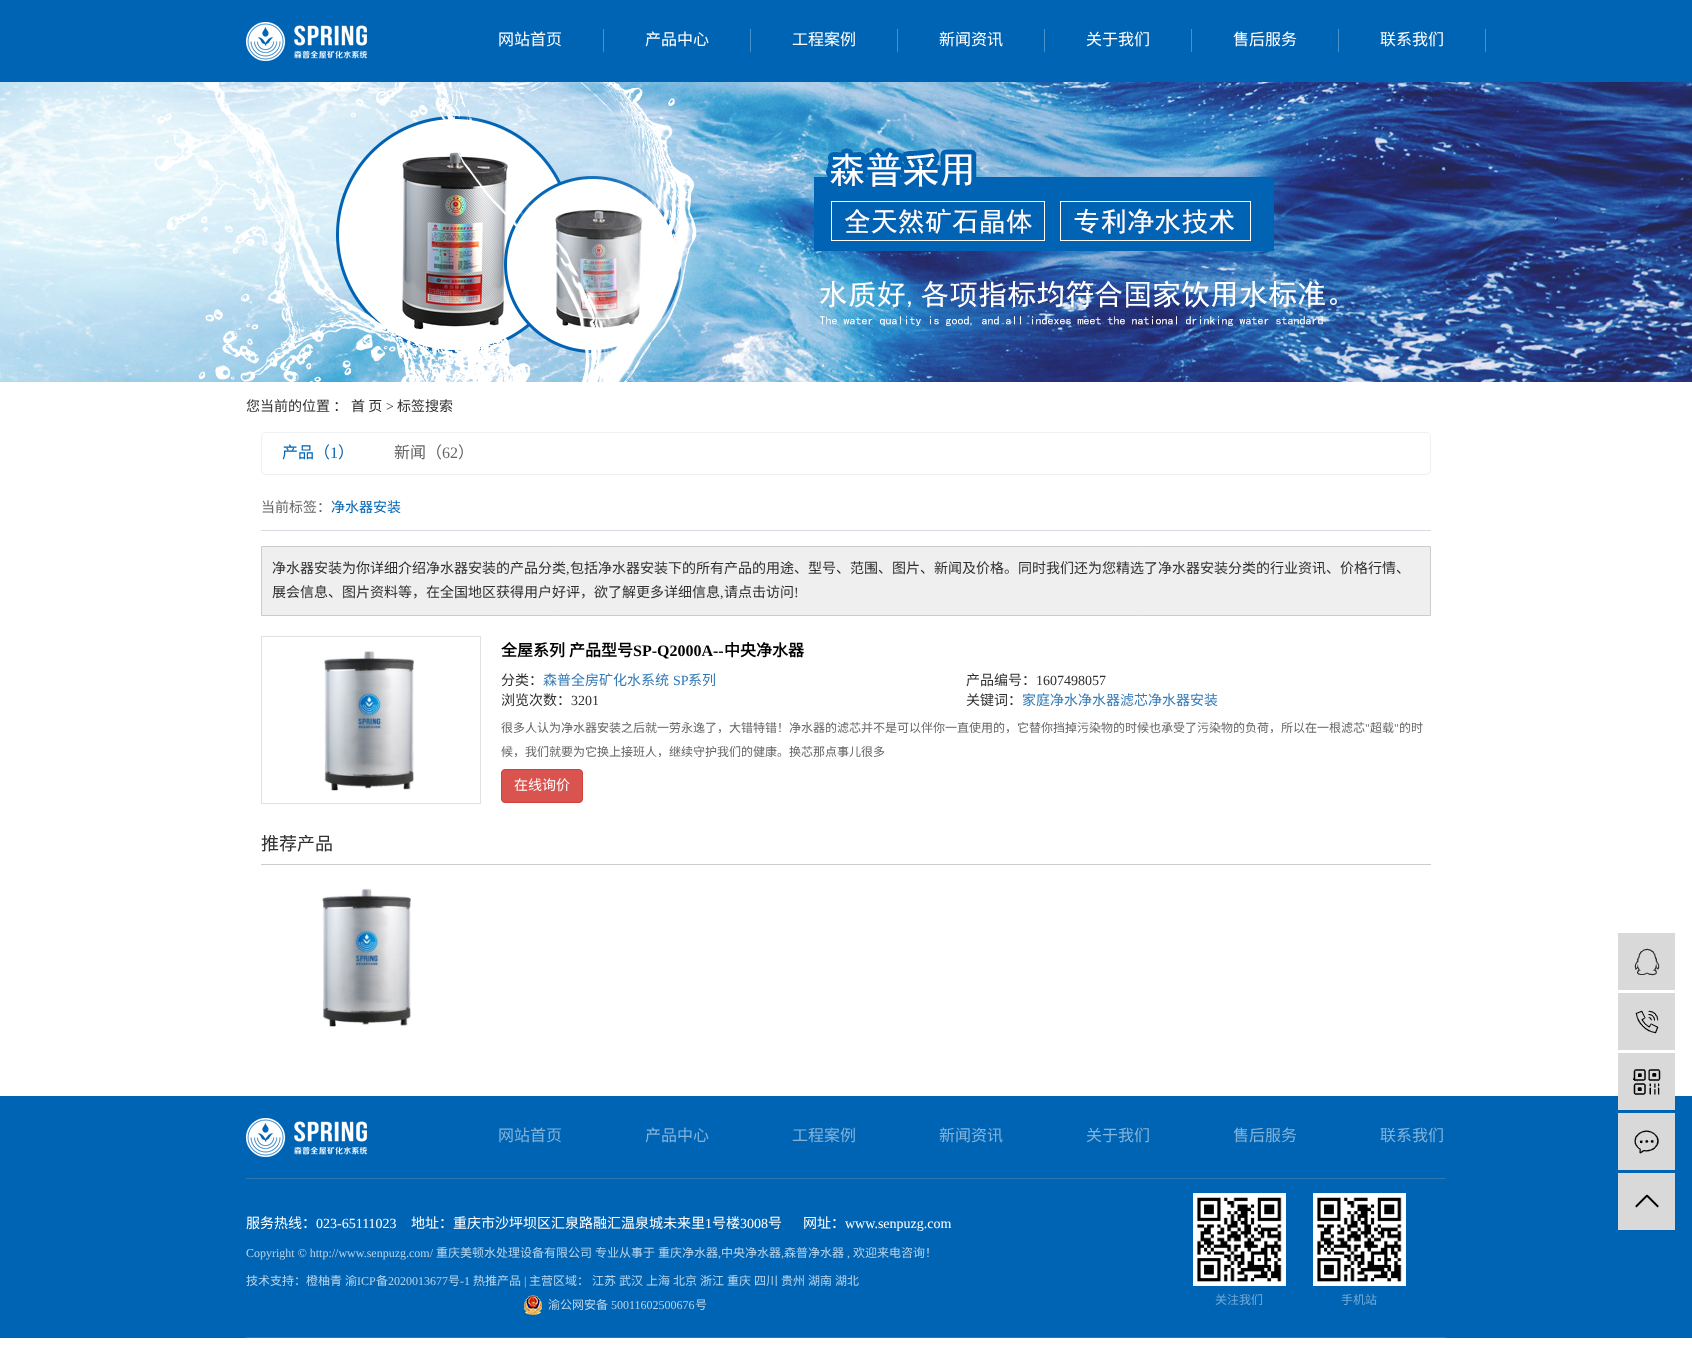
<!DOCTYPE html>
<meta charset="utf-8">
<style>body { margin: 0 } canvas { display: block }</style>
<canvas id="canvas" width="1692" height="1370"></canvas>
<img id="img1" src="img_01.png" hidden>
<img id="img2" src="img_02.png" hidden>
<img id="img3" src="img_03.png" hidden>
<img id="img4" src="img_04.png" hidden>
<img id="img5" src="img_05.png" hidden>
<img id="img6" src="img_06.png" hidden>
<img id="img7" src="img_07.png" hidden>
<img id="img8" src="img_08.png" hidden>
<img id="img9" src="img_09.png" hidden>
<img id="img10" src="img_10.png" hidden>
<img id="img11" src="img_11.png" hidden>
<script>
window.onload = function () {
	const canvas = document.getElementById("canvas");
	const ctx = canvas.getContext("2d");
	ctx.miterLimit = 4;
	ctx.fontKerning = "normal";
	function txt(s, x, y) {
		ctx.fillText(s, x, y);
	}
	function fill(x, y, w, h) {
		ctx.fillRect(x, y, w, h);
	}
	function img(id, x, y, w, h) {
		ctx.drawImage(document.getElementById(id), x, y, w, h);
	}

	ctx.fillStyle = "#FFFFFF";
	fill(0, 0, 1692, 1370);
	ctx.fillStyle = "#0064B4";
	fill(0, 0, 1692, 82);
	img("img1", 246, 22, 121, 39);
	ctx.fillStyle = "#4A91CA";
	fill(603, 29, 1, 23);
	fill(750, 29, 1, 23);
	fill(897, 29, 1, 23);
	fill(1044, 29, 1, 23);
	fill(1191, 29, 1, 23);
	fill(1338, 29, 1, 23);
	fill(1485, 29, 1, 23);
	img("img2", 0, 82, 1692, 300);
	ctx.beginPath();
	ctx.roundRect(261.5, 432.5, 1169, 42, 4.5);
	ctx.strokeStyle = "#EFEFEF";
	ctx.stroke();
	ctx.fillStyle = "#D6DBE1";
	fill(261, 530, 1170, 1);
	ctx.fillStyle = "#EFEFEF";
	ctx.beginPath();
	ctx.rect(261.5, 546.5, 1169, 69);
	ctx.fill();
	ctx.strokeStyle = "#CCCCCC";
	ctx.stroke();
	ctx.strokeStyle = "#E1E1E1";
	ctx.strokeRect(261.5, 636.5, 219, 167);
	img("img3", 324, 651, 90, 140);
	ctx.fillStyle = "#D9534F";
	ctx.beginPath();
	ctx.roundRect(501.5, 769.5, 81, 33, 3.5);
	ctx.fill();
	ctx.strokeStyle = "#D43F3A";
	ctx.stroke();
	ctx.fillStyle = "#CCCCCC";
	fill(261, 864, 1170, 1);
	img("img4", 322, 888, 89, 139);
	ctx.fillStyle = "#0064B4";
	fill(0, 1096, 1692, 242);
	img("img1", 246, 1118, 121, 39);
	ctx.fillStyle = "#3077B0";
	fill(246, 1178, 1200, 1);
	fill(246, 1337, 1200, 1);
	img("img5", 524, 1295, 18, 20);
	img("img6", 1193, 1193, 93, 93);
	img("img6", 1313, 1193, 93, 93);
	ctx.fillStyle = "#D9D9D9";
	fill(1618, 933, 57, 57);
	img("img7", 1634, 948, 26, 28);
	fill(1618, 993, 57, 57);
	img("img8", 1635, 1010, 24, 24);
	fill(1618, 1053, 57, 57);
	img("img9", 1633, 1069, 28, 26);
	fill(1618, 1113, 57, 57);
	img("img10", 1634, 1130, 25, 24);
	fill(1618, 1173, 57, 57);
	img("img11", 1635, 1194, 24, 14);
	ctx.font = "16px Noto Sans CJK SC";
	ctx.fillStyle = "#FFFFFF";
	txt("网站首页", 498, 45);
	txt("产品中心", 645, 45);
	txt("工程案例", 792, 45);
	txt("新闻资讯", 939, 45);
	txt("关于我们", 1086, 45);
	txt("售后服务", 1233, 45);
	txt("联系我们", 1380, 45);
	ctx.font = "14px Noto Sans CJK SC";
	ctx.fillStyle = "#2F2F2F";
	txt("您当前的位置 ：", 246, 411);
	txt("首 页", 351, 411);
	ctx.font = "14px Liberation Serif";
	txt(">", 386, 411);
	ctx.font = "14px Noto Sans CJK SC";
	txt("标签搜索", 397, 411);
	ctx.font = "16px Noto Sans CJK SC";
	ctx.fillStyle = "#0064B4";
	txt("产品（", 282, 458);
	ctx.font = "16px Liberation Serif";
	txt("1", 330, 458);
	ctx.font = "16px Noto Sans CJK SC";
	txt("）", 338, 458);
	ctx.fillStyle = "#666666";
	txt("新闻（", 394, 458);
	ctx.font = "16px Liberation Serif";
	txt("62", 442, 458);
	ctx.font = "16px Noto Sans CJK SC";
	txt("）", 458, 458);
	ctx.font = "14px Noto Sans CJK SC";
	txt("当前标签：", 261, 512);
	ctx.fillStyle = "#0064B4";
	txt("净水器安装", 331, 512);
	ctx.fillStyle = "#2F2F2F";
	txt("净水器安装为你详细介绍净水器安装的产品分类", 272, 573);
	ctx.font = "14px Liberation Serif";
	txt(",", 566, 573);
	ctx.font = "14px Noto Sans CJK SC";
	txt("包括净水器安装下的所有产品的用途、型号、范围、图片、新闻及价格。同时我们还为您精选了净水器安装分类的行业资讯、价格行情、", 570, 573);
	txt("展会信息、图片资料等，在全国地区获得用户好评，欲了解更多详细信息", 272, 597);
	ctx.font = "14px Liberation Serif";
	txt(",", 720, 597);
	ctx.font = "14px Noto Sans CJK SC";
	txt("请点击访问", 724, 597);
	ctx.font = "14px Liberation Serif";
	txt("!", 794, 597);
	ctx.font = "bold 16px Noto Sans CJK SC";
	ctx.fillStyle = "#000000";
	txt("全屋系列", 501, 656);
	txt("产品型号", 569, 656);
	ctx.font = "bold 16px Liberation Serif";
	txt("SP-Q2000A--", 633, 656);
	ctx.font = "bold 16px Noto Sans CJK SC";
	txt("中央净水器", 724, 656);
	ctx.font = "14px Noto Sans CJK SC";
	ctx.fillStyle = "#2F2F2F";
	txt("分类：", 501, 685);
	ctx.fillStyle = "#337AB7";
	txt("森普全房矿化水系统", 543, 685);
	ctx.font = "14px Liberation Serif";
	txt("SP", 673, 685);
	ctx.font = "14px Noto Sans CJK SC";
	txt("系列", 688, 685);
	ctx.fillStyle = "#2F2F2F";
	txt("产品编号：", 966, 685);
	ctx.font = "14px Liberation Serif";
	txt("1607498057", 1036, 685);
	ctx.font = "14px Noto Sans CJK SC";
	txt("浏览次数：", 501, 705);
	ctx.font = "14px Liberation Serif";
	txt("3201", 571, 705);
	ctx.font = "14px Noto Sans CJK SC";
	txt("关键词：", 966, 705);
	ctx.fillStyle = "#337AB7";
	txt("家庭净水净水器滤芯净水器安装", 1022, 705);
	ctx.font = "12px Noto Sans CJK SC";
	ctx.fillStyle = "#666666";
	txt("很多人认为净水器安装之后就一劳永逸了，大错特错！净水器的滤芯并不是可以伴你一直使用的，它替你挡掉污染物的时候也承受了污染物的负荷，所以在一根滤芯", 501, 732);
	ctx.font = "12px Liberation Serif";
	txt("\"", 1365, 732);
	ctx.font = "12px Noto Sans CJK SC";
	txt("超载", 1370, 732);
	ctx.font = "12px Liberation Serif";
	txt("\"", 1394, 732);
	ctx.font = "12px Noto Sans CJK SC";
	txt("的时", 1399, 732);
	txt("候，我们就要为它换上接班人，继续守护我们的健康。换芯那点事儿很多", 501, 756);
	ctx.font = "14px Noto Sans CJK SC";
	ctx.fillStyle = "#FFFFFF";
	txt("在线询价", 514, 790);
	ctx.font = "18px Noto Sans CJK SC";
	ctx.fillStyle = "#2F2F2F";
	txt("推荐产品", 261, 850);
	ctx.font = "16px Noto Sans CJK SC";
	ctx.fillStyle = "#82B3DA";
	txt("网站首页", 498, 1141);
	txt("产品中心", 645, 1141);
	txt("工程案例", 792, 1141);
	txt("新闻资讯", 939, 1141);
	txt("关于我们", 1086, 1141);
	txt("售后服务", 1233, 1141);
	txt("联系我们", 1380, 1141);
	ctx.font = "14px Noto Sans CJK SC";
	ctx.fillStyle = "#FFFFFF";
	txt("服务热线：", 246, 1228);
	ctx.font = "14px Liberation Serif";
	txt("023-65111023", 316, 1228);
	ctx.font = "14px Noto Sans CJK SC";
	txt("地址：重庆市沙坪坝区汇泉路融汇温泉城未来里", 411, 1228);
	ctx.font = "14px Liberation Serif";
	txt("1", 705, 1228);
	ctx.font = "14px Noto Sans CJK SC";
	txt("号楼", 712, 1228);
	ctx.font = "14px Liberation Serif";
	txt("3008", 740, 1228);
	ctx.font = "14px Noto Sans CJK SC";
	txt("号", 768, 1228);
	txt("网址：", 803, 1228);
	ctx.font = "14px Liberation Serif";
	txt("www.senpuzg.com", 845, 1228);
	ctx.font = "12px Liberation Serif";
	ctx.fillStyle = "#B8D4EA";
	txt("Copyright © http://www.senpuzg.com/", 246, 1257);
	ctx.font = "12px Noto Sans CJK SC";
	txt("重庆美顿水处理设备有限公司", 436, 1257);
	txt("专业从事于", 595, 1257);
	txt("重庆净水器", 658, 1257);
	ctx.font = "12px Liberation Serif";
	txt(",", 718, 1257);
	ctx.font = "12px Noto Sans CJK SC";
	txt("中央净水器", 721, 1257);
	ctx.font = "12px Liberation Serif";
	txt(",", 781, 1257);
	ctx.font = "12px Noto Sans CJK SC";
	txt("森普净水器", 784, 1257);
	ctx.font = "12px Liberation Serif";
	txt(",", 847, 1257);
	ctx.font = "12px Noto Sans CJK SC";
	txt("欢迎来电咨询！", 853, 1257);
	txt("技术支持：橙柚青", 246, 1285);
	txt("渝", 345, 1285);
	ctx.font = "12px Liberation Serif";
	txt("ICP", 357, 1285);
	ctx.font = "12px Noto Sans CJK SC";
	txt("备", 376, 1285);
	ctx.font = "12px Liberation Serif";
	txt("2020013677", 388, 1285);
	ctx.font = "12px Noto Sans CJK SC";
	txt("号", 448, 1285);
	ctx.font = "12px Liberation Serif";
	txt("-1", 460, 1285);
	ctx.font = "12px Noto Sans CJK SC";
	txt("热推产品", 473, 1285);
	ctx.font = "12px Liberation Serif";
	txt("|", 524, 1285);
	ctx.font = "12px Noto Sans CJK SC";
	txt("主营区域：", 529, 1285);
	txt("江苏", 592, 1285);
	txt("武汉", 619, 1285);
	txt("上海", 646, 1285);
	txt("北京", 673, 1285);
	txt("浙江", 700, 1285);
	txt("重庆", 727, 1285);
	txt("四川", 754, 1285);
	txt("贵州", 781, 1285);
	txt("湖南", 808, 1285);
	txt("湖北", 835, 1285);
	txt("渝公网安备", 548, 1309);
	ctx.font = "12px Liberation Serif";
	txt("50011602500676", 611, 1309);
	ctx.font = "12px Noto Sans CJK SC";
	txt("号", 695, 1309);
	ctx.fillStyle = "#73AAD6";
	txt("关注我们", 1215, 1304);
	txt("手机站", 1341, 1304);
};
</script>
